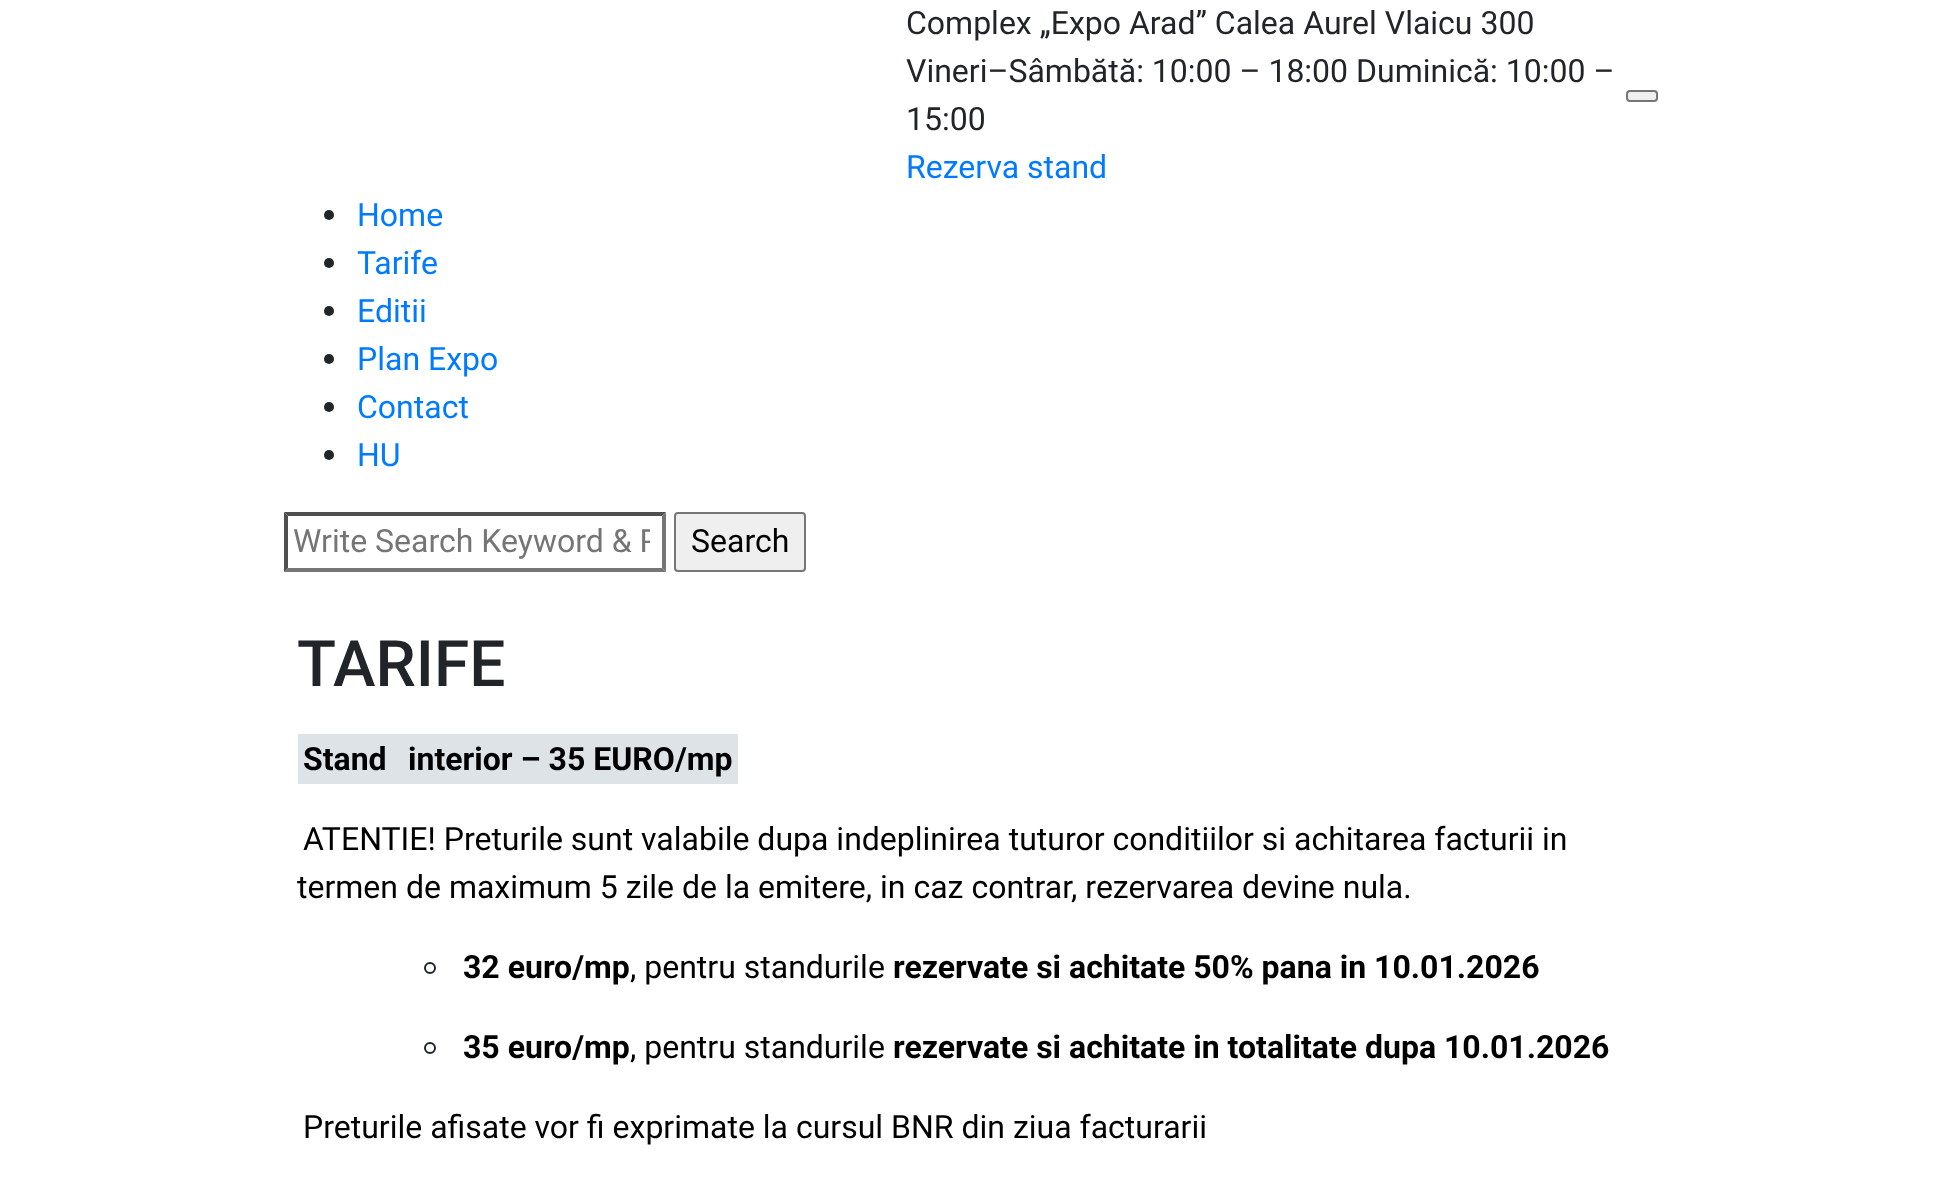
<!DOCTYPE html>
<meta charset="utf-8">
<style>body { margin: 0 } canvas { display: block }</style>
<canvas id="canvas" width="1933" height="1188"></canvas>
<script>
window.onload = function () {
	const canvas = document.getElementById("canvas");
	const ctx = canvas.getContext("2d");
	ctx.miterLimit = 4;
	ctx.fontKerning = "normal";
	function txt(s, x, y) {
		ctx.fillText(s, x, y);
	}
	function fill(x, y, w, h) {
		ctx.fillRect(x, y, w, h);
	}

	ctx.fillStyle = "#FFFFFF";
	fill(0, 0, 1933, 1188);
	ctx.fillStyle = "#EFEFEF";
	ctx.beginPath();
	ctx.roundRect(1627, 91, 30, 10, 3);
	ctx.fill();
	ctx.strokeStyle = "#767676";
	ctx.lineWidth = 2;
	ctx.stroke();
	ctx.fillStyle = "#212529";
	ctx.beginPath();
	ctx.arc(329, 215, 5, 0, Math.PI * 2);
	ctx.fill();
	ctx.beginPath();
	ctx.arc(329, 263, 5, 0, Math.PI * 2);
	ctx.fill();
	ctx.beginPath();
	ctx.arc(329, 311, 5, 0, Math.PI * 2);
	ctx.fill();
	ctx.beginPath();
	ctx.arc(329, 359, 5, 0, Math.PI * 2);
	ctx.fill();
	ctx.beginPath();
	ctx.arc(329, 407, 5, 0, Math.PI * 2);
	ctx.fill();
	ctx.beginPath();
	ctx.arc(329, 455, 5, 0, Math.PI * 2);
	ctx.fill();
	ctx.fillStyle = "#4F4F4F";
	ctx.beginPath();
	ctx.moveTo(284, 512);
	ctx.lineTo(666, 512);
	ctx.lineTo(662, 516);
	ctx.lineTo(288, 516);
	ctx.closePath();
	ctx.fill();
	ctx.fillStyle = "#767676";
	ctx.beginPath();
	ctx.moveTo(666, 512);
	ctx.lineTo(666, 572);
	ctx.lineTo(662, 568);
	ctx.lineTo(662, 516);
	ctx.closePath();
	ctx.fill();
	ctx.beginPath();
	ctx.moveTo(666, 572);
	ctx.lineTo(284, 572);
	ctx.lineTo(288, 568);
	ctx.lineTo(662, 568);
	ctx.closePath();
	ctx.fill();
	ctx.fillStyle = "#4F4F4F";
	ctx.beginPath();
	ctx.moveTo(284, 572);
	ctx.lineTo(284, 512);
	ctx.lineTo(288, 516);
	ctx.lineTo(288, 568);
	ctx.closePath();
	ctx.fill();
	ctx.fillStyle = "#EFEFEF";
	ctx.beginPath();
	ctx.roundRect(675, 513, 130, 58, 3);
	ctx.fill();
	ctx.stroke();
	ctx.fillStyle = "#DDE3E7";
	fill(298, 734, 440, 50);
	ctx.beginPath();
	ctx.arc(430, 968, 5, 0, Math.PI * 2);
	ctx.strokeStyle = "#212529";
	ctx.stroke();
	ctx.beginPath();
	ctx.arc(430, 1048, 5, 0, Math.PI * 2);
	ctx.stroke();
	ctx.font = "32px Roboto";
	ctx.fillStyle = "#212529";
	txt("Complex „Expo Arad” Calea Aurel Vlaicu 300", 906, 34);
	txt("Vineri–Sâmbătă: 10:00 – 18:00 Duminică: 10:00 –", 906, 82);
	txt("15:00", 906, 130);
	ctx.fillStyle = "#007BFF";
	txt("Rezerva stand", 906, 178);
	txt("Home", 357, 226);
	txt("Tarife", 357, 274);
	txt("Editii", 357, 322);
	txt("Plan Expo", 357, 370);
	txt("Contact", 357, 418);
	txt("HU", 357, 466);
	ctx.save();
	ctx.beginPath();
	ctx.rect(292, 522, 358, 38);
	ctx.clip();
	ctx.fillStyle = "#757575";
	txt("Write Search Keyword & P", 293, 552);
	ctx.restore();
	ctx.fillStyle = "#000000";
	txt("Search", 691, 552);
	ctx.font = "500 64px Roboto";
	ctx.fillStyle = "#212529";
	txt("TARIFE", 297, 686);
	ctx.font = "bold 32px Roboto";
	ctx.fillStyle = "#000000";
	txt("Stand", 303, 770);
	txt("interior – 35 EURO/mp", 408, 770);
	ctx.font = "32px Roboto";
	txt("ATENTIE! Preturile sunt valabile dupa indeplinirea tuturor conditiilor si achitarea facturii in", 303, 850);
	txt("termen de maximum 5 zile de la emitere, in caz contrar, rezervarea devine nula.", 297, 898);
	ctx.font = "bold 32px Roboto";
	txt("32 euro/mp", 463, 978);
	ctx.font = "32px Roboto";
	txt(", pentru standurile", 630, 978);
	ctx.font = "bold 32px Roboto";
	txt("rezervate si achitate 50% pana in 10.01.2026", 893, 978);
	txt("35 euro/mp", 463, 1058);
	ctx.font = "32px Roboto";
	txt(", pentru standurile", 630, 1058);
	ctx.font = "bold 32px Roboto";
	txt("rezervate si achitate in totalitate dupa 10.01.2026", 893, 1058);
	ctx.font = "32px Roboto";
	txt("Preturile afisate vor fi exprimate la cursul BNR din ziua facturarii", 303, 1138);
};
</script>
